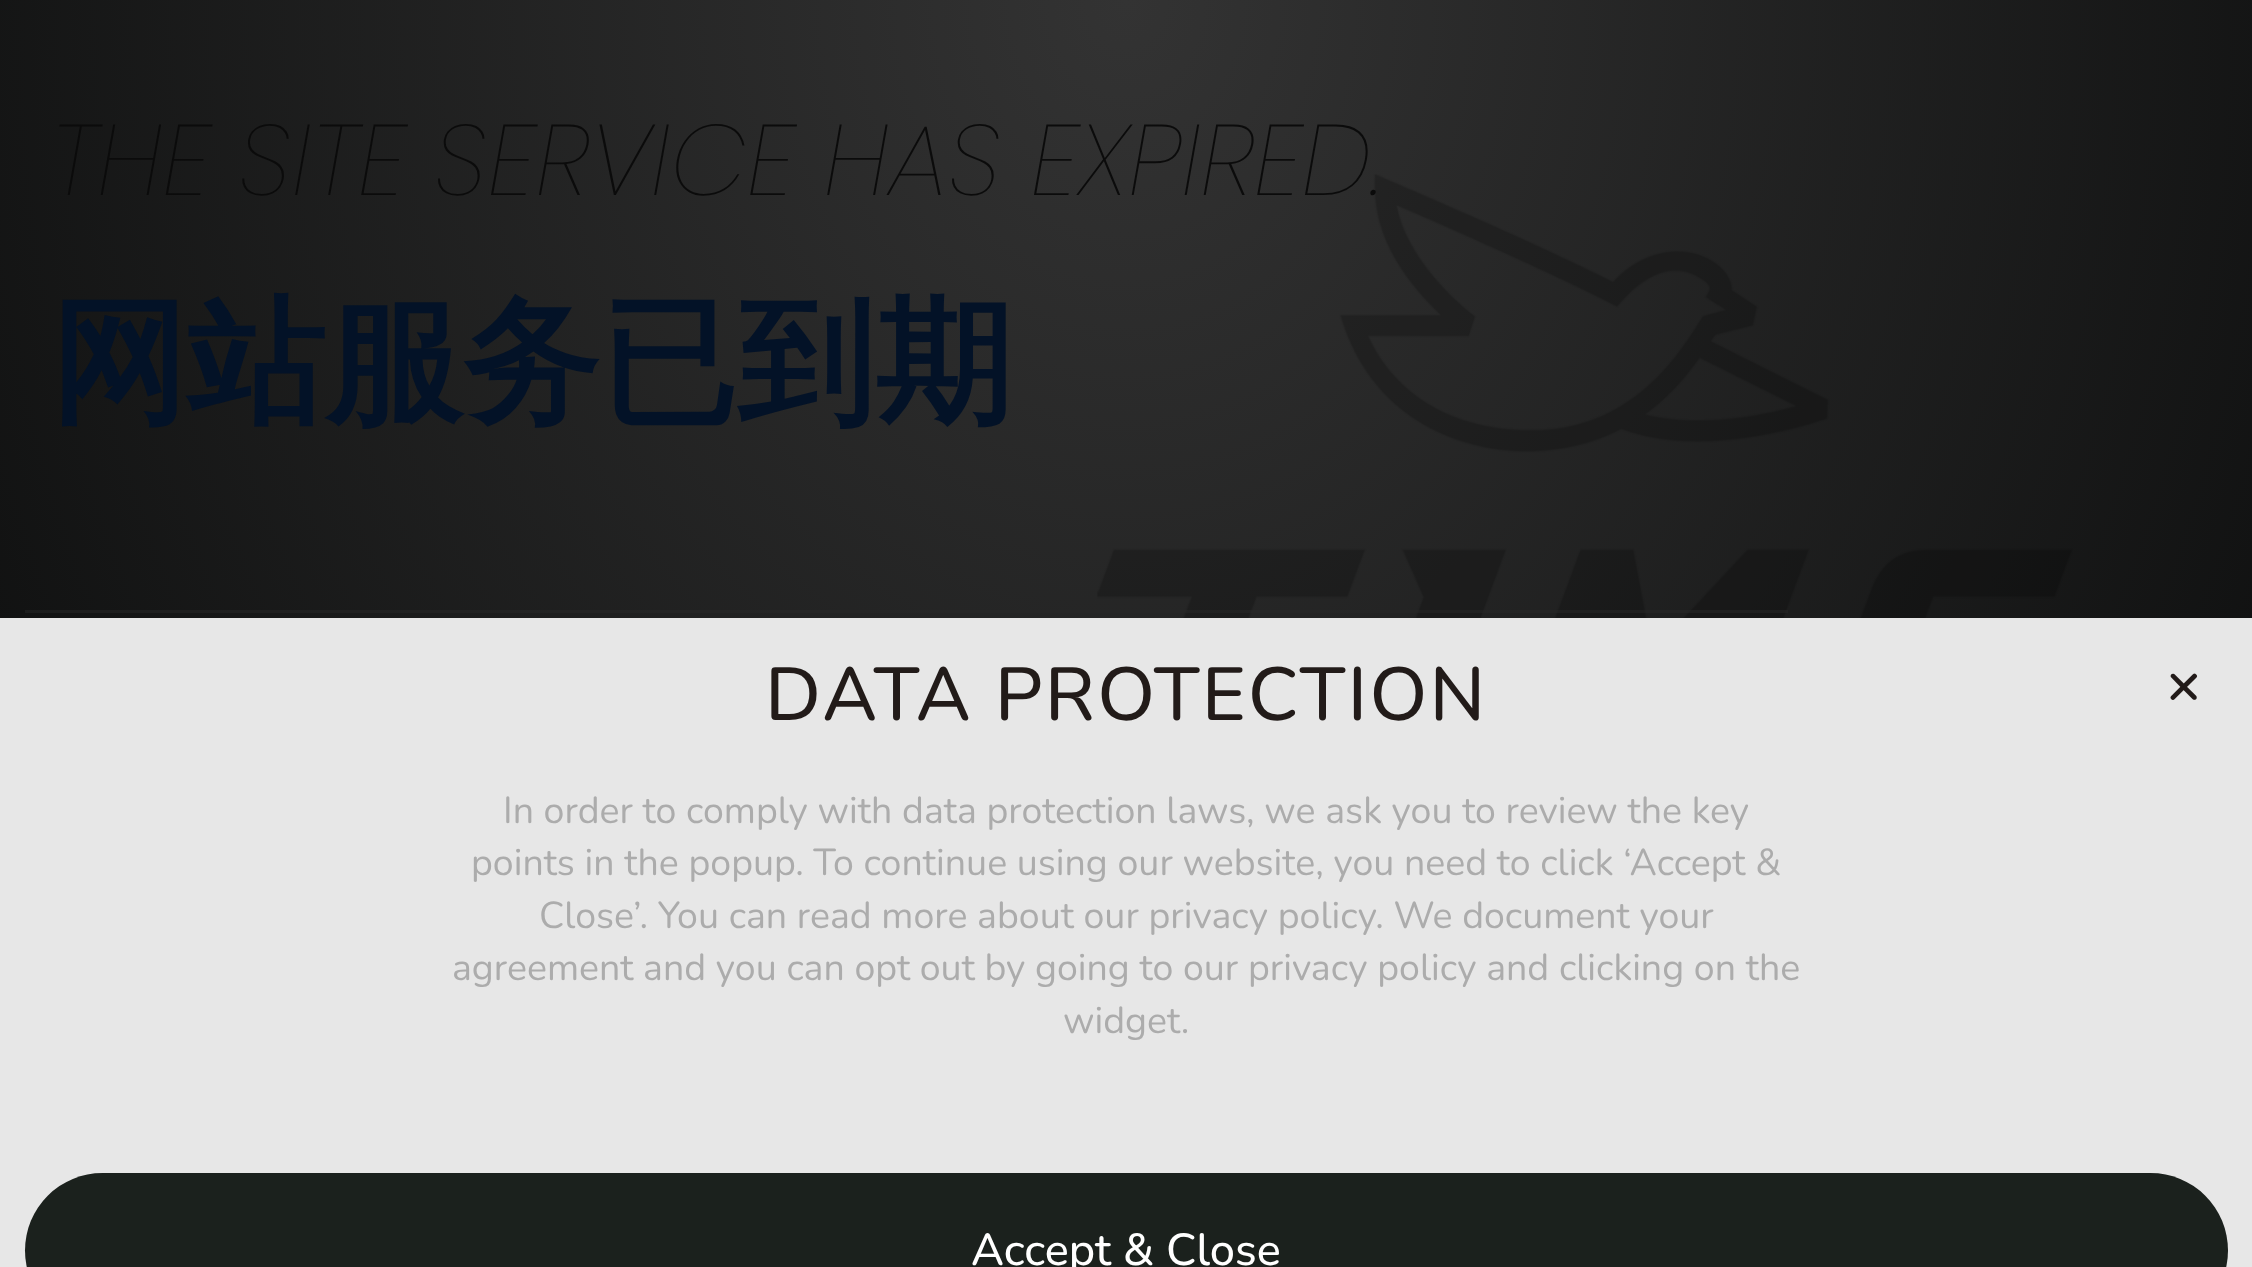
<!DOCTYPE html>
<meta charset="utf-8">
<style>body { margin: 0 } canvas { display: block }</style>
<canvas id="canvas" width="2252" height="1267"></canvas>
<img id="img1" src="img_01.png" hidden>
<img id="img2" src="img_02.png" hidden>
<script>
window.onload = function () {
	const canvas = document.getElementById("canvas");
	const ctx = canvas.getContext("2d");
	ctx.miterLimit = 4;
	ctx.fontKerning = "normal";
	function txt(s, x, y) {
		ctx.fillText(s, x, y);
	}
	function fill(x, y, w, h) {
		ctx.fillRect(x, y, w, h);
	}
	function round(x, y, w, h, r) {
		ctx.beginPath();
		ctx.roundRect(x, y, w, h, r);
		ctx.fill();
	}
	function img(id, x, y, w, h) {
		ctx.drawImage(document.getElementById(id), x, y, w, h);
	}
	let gradient;

	ctx.fillStyle = "#FFFFFF";
	fill(0, 0, 2252, 1267);
	gradient = ctx.createRadialGradient(1126, 0, 0, 1126, 0, 1593);
	gradient.addColorStop(0, "#333333");
	gradient.addColorStop(1, "#080909");
	ctx.fillStyle = gradient;
	ctx.beginPath();
	ctx.rect(0, 0, 2252, 618);
	ctx.save();
	ctx.clip();
	ctx.scale(1, 1948 / 1593);
	ctx.fillRect(0, 0, 2252, 1037);
	ctx.restore();
	img("img1", 1097, 174, 976, 444);
	ctx.fillStyle = "rgba(42, 42, 42, 0.45)";
	fill(25, 610, 1763, 3);
	ctx.fillStyle = "#E7E7E7";
	fill(0, 618, 2252, 649);
	ctx.fillStyle = "#1B211D";
	round(25, 1173, 2203, 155, 77.5);
	img("img2", 2170, 673, 28, 27);
	ctx.font = "italic 100 100px Poppins";
	ctx.fillStyle = "#0B0B0B";
	txt("THE SITE SERVICE HAS EXPIRED.", 50, 195);
	ctx.font = "bold 137.5px WenQuanYi Zen Hei";
	ctx.fillStyle = "#031227";
	txt("网站服务已到期", 50, 410);
	ctx.letterSpacing = "2.25px";
	ctx.font = "500 75px Nunito";
	ctx.fillStyle = "#221B19";
	txt("DATA PROTECTION", 765, 720);
	ctx.letterSpacing = "0px";
	ctx.font = "37.5px Nunito";
	ctx.fillStyle = "#ACACAC";
	txt("In order to comply with data protection laws, we ask you to review the key", 503, 823);
	txt("points in the popup. To continue using our website, you need to click ‘Accept &", 471, 875);
	txt("Close’. You can read more about our privacy policy. We document your", 539, 928);
	txt("agreement and you can opt out by going to our privacy policy and clicking on the", 452, 980);
	txt("widget.", 1063, 1033);
	ctx.font = "500 45px Nunito";
	ctx.fillStyle = "#FFFFFF";
	txt("Accept & Close", 971, 1265);
};
</script>
